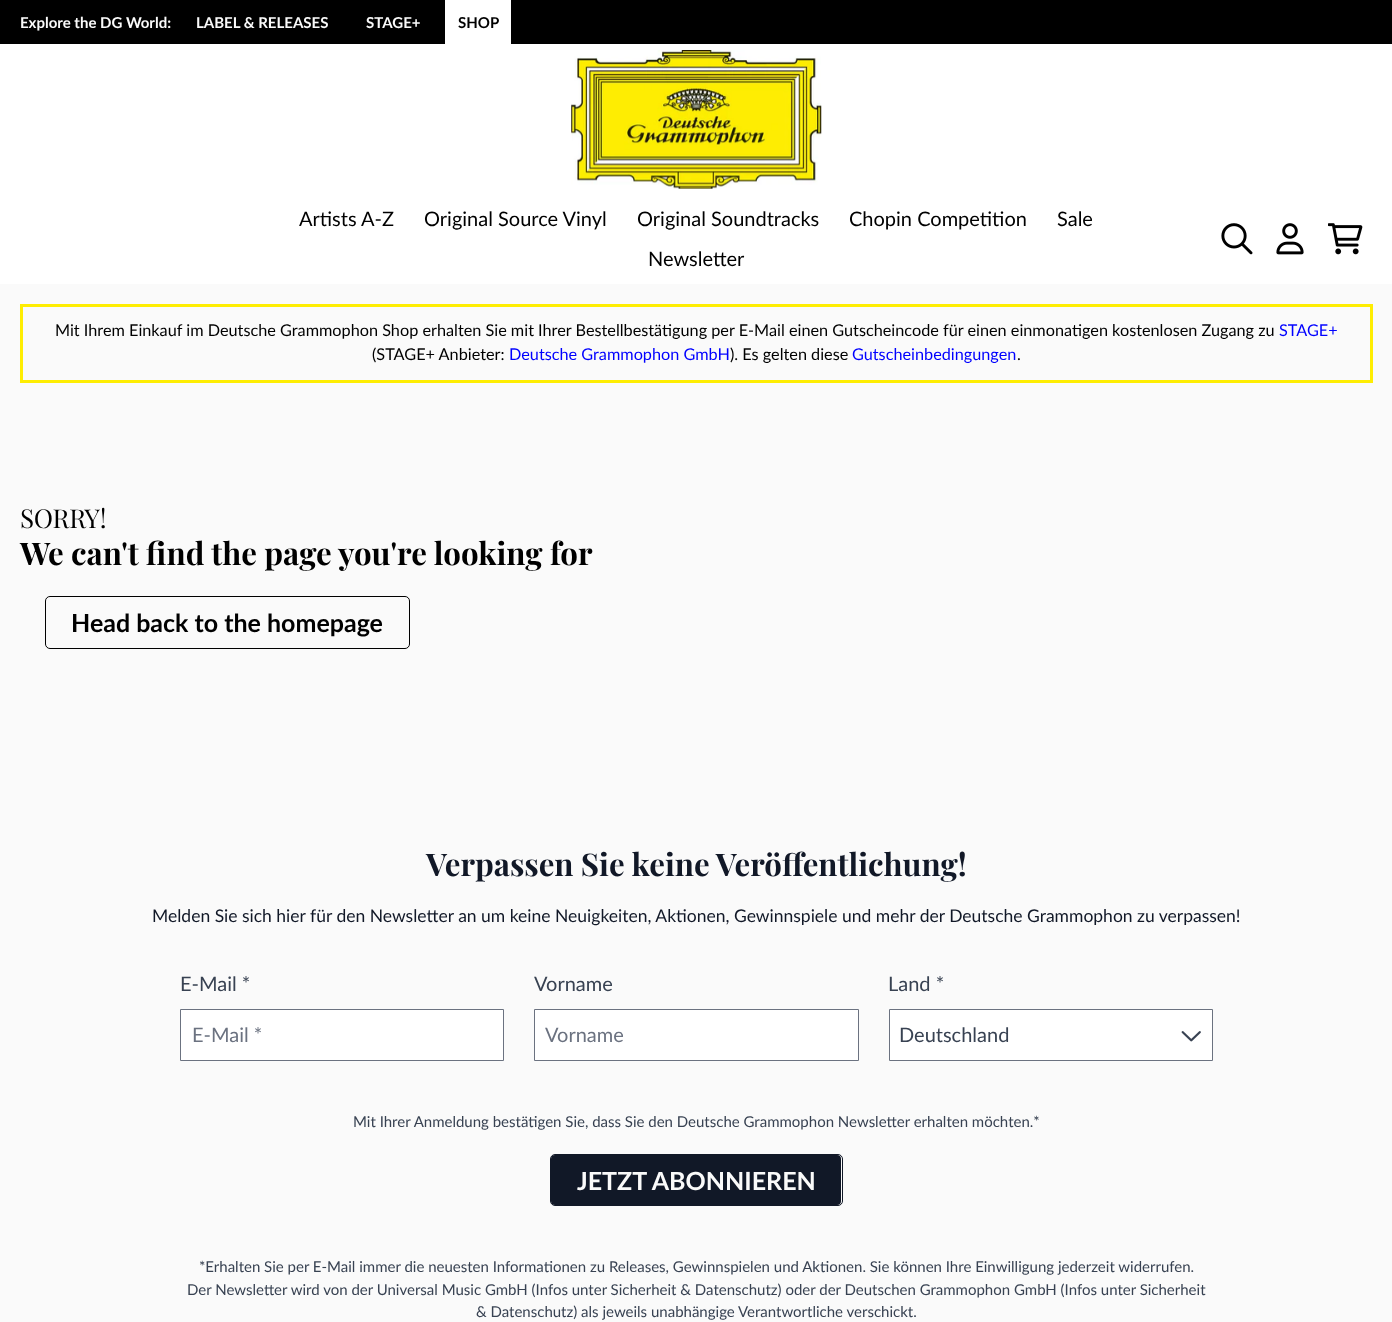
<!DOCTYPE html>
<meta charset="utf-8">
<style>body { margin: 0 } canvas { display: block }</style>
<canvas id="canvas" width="1392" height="1322"></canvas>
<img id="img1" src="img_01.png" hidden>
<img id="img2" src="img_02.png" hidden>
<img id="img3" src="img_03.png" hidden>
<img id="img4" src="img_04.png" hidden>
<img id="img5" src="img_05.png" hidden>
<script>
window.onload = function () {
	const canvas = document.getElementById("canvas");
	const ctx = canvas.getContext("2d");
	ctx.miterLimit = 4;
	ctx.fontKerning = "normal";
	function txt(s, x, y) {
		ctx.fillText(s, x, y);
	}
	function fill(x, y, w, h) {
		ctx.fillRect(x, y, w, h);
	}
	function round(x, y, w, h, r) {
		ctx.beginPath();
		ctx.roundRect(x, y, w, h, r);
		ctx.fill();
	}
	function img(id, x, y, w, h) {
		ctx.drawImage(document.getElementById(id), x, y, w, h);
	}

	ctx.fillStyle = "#FFFFFF";
	fill(0, 0, 1392, 1322);
	ctx.fillStyle = "#000000";
	fill(0, 0, 1392, 44);
	ctx.fillStyle = "#FFFFFF";
	fill(445, 0, 66, 44);
	img("img1", 571, 50, 251, 139);
	img("img2", 1221, 223, 32, 32);
	img("img3", 1276, 223, 28, 32);
	img("img4", 1328, 223, 35, 32);
	ctx.fillStyle = "#FAFAFA";
	fill(0, 284, 1392, 1038);
	ctx.strokeStyle = "#FEED02";
	ctx.lineWidth = 3;
	ctx.strokeRect(21.5, 305.5, 1350, 76);
	ctx.beginPath();
	ctx.roundRect(45.5, 596.5, 364, 52, 4.5);
	ctx.strokeStyle = "#000000";
	ctx.lineWidth = 1;
	ctx.stroke();
	ctx.fillStyle = "#FFFFFF";
	ctx.beginPath();
	ctx.rect(180.5, 1009.5, 323, 51);
	ctx.fill();
	ctx.strokeStyle = "#6B7280";
	ctx.stroke();
	ctx.beginPath();
	ctx.rect(534.5, 1009.5, 324, 51);
	ctx.fill();
	ctx.stroke();
	ctx.beginPath();
	ctx.rect(889.5, 1009.5, 323, 51);
	ctx.fill();
	ctx.stroke();
	img("img5", 1181, 1031, 20, 11);
	ctx.beginPath();
	ctx.roundRect(550.5, 1154.5, 292, 51, 4.5);
	ctx.strokeStyle = "#111827";
	ctx.stroke();
	ctx.fillStyle = "#111827";
	round(551, 1155, 290, 50, 4);
	ctx.font = "bold 15px Lato";
	ctx.fillStyle = "#FAFAFA";
	txt("Explore the DG World:", 20, 28);
	txt("LABEL & RELEASES", 196, 28);
	txt("STAGE+", 366, 28);
	ctx.fillStyle = "#000000";
	txt("SHOP", 458, 28);
	ctx.font = "20px Lato";
	txt("Artists A-Z", 299, 226);
	txt("Original Source Vinyl", 424, 226);
	txt("Original Soundtracks", 637, 226);
	txt("Chopin Competition", 849, 226);
	txt("Sale", 1057, 226);
	txt("Newsletter", 648, 266);
	ctx.font = "16.25px Lato";
	txt("Mit Ihrem Einkauf im Deutsche Grammophon Shop erhalten Sie mit Ihrer Bestellbestätigung per E-Mail einen Gutscheincode für einen einmonatigen kostenlosen Zugang zu", 55, 336);
	ctx.fillStyle = "#0000FF";
	txt("STAGE+", 1279, 336);
	ctx.fillStyle = "#000000";
	txt("(STAGE+ Anbieter:", 372, 360);
	ctx.fillStyle = "#0000FF";
	txt("Deutsche Grammophon GmbH", 509, 360);
	ctx.fillStyle = "#000000";
	txt("). Es gelten diese", 730, 360);
	ctx.fillStyle = "#0000FF";
	txt("Gutscheinbedingungen", 852, 360);
	ctx.fillStyle = "#000000";
	txt(".", 1017, 360);
	ctx.letterSpacing = "-0.25px";
	ctx.font = "26px Playfair Display";
	txt("SORRY!", 20, 528);
	ctx.letterSpacing = "0px";
	ctx.font = "bold 31.25px Playfair Display";
	txt("We can't find the page you're looking for", 20, 565);
	ctx.font = "bold 25px Lato";
	txt("Head back to the homepage", 71, 632);
	ctx.font = "bold 31.25px Playfair Display";
	ctx.fillStyle = "#111827";
	txt("Verpassen Sie keine Veröffentlichung!", 426, 876);
	ctx.font = "17.5px Lato";
	txt("Melden Sie sich hier für den Newsletter an um keine Neuigkeiten, Aktionen, Gewinnspiele und mehr der Deutsche Grammophon zu verpassen!", 152, 922);
	ctx.font = "20px Lato";
	ctx.fillStyle = "#384252";
	txt("E-Mail *", 180, 991);
	ctx.fillStyle = "#6B7280";
	txt("E-Mail *", 192, 1042);
	ctx.fillStyle = "#384252";
	txt("Vorname", 534, 991);
	ctx.fillStyle = "#6B7280";
	txt("Vorname", 545, 1042);
	ctx.fillStyle = "#384252";
	txt("Land *", 888, 991);
	txt("Deutschland", 899, 1042);
	ctx.font = "15px Lato";
	txt("Mit Ihrer Anmeldung bestätigen Sie, dass Sie den Deutsche Grammophon Newsletter erhalten möchten.*", 353, 1127);
	ctx.font = "bold 25px Lato";
	ctx.fillStyle = "#FAFAFA";
	txt("JETZT ABONNIEREN", 577, 1190);
	ctx.font = "15px Lato";
	ctx.fillStyle = "#384252";
	txt("*Erhalten Sie per E-Mail immer die neuesten Informationen zu Releases, Gewinnspielen und Aktionen. Sie können Ihre Einwilligung jederzeit widerrufen.", 199, 1272);
	txt("Der Newsletter wird von der Universal Music GmbH (Infos unter Sicherheit & Datenschutz) oder der Deutschen Grammophon GmbH (Infos unter Sicherheit", 187, 1295);
	txt("& Datenschutz) als jeweils unabhängige Verantwortliche verschickt.", 476, 1317);
};
</script>
